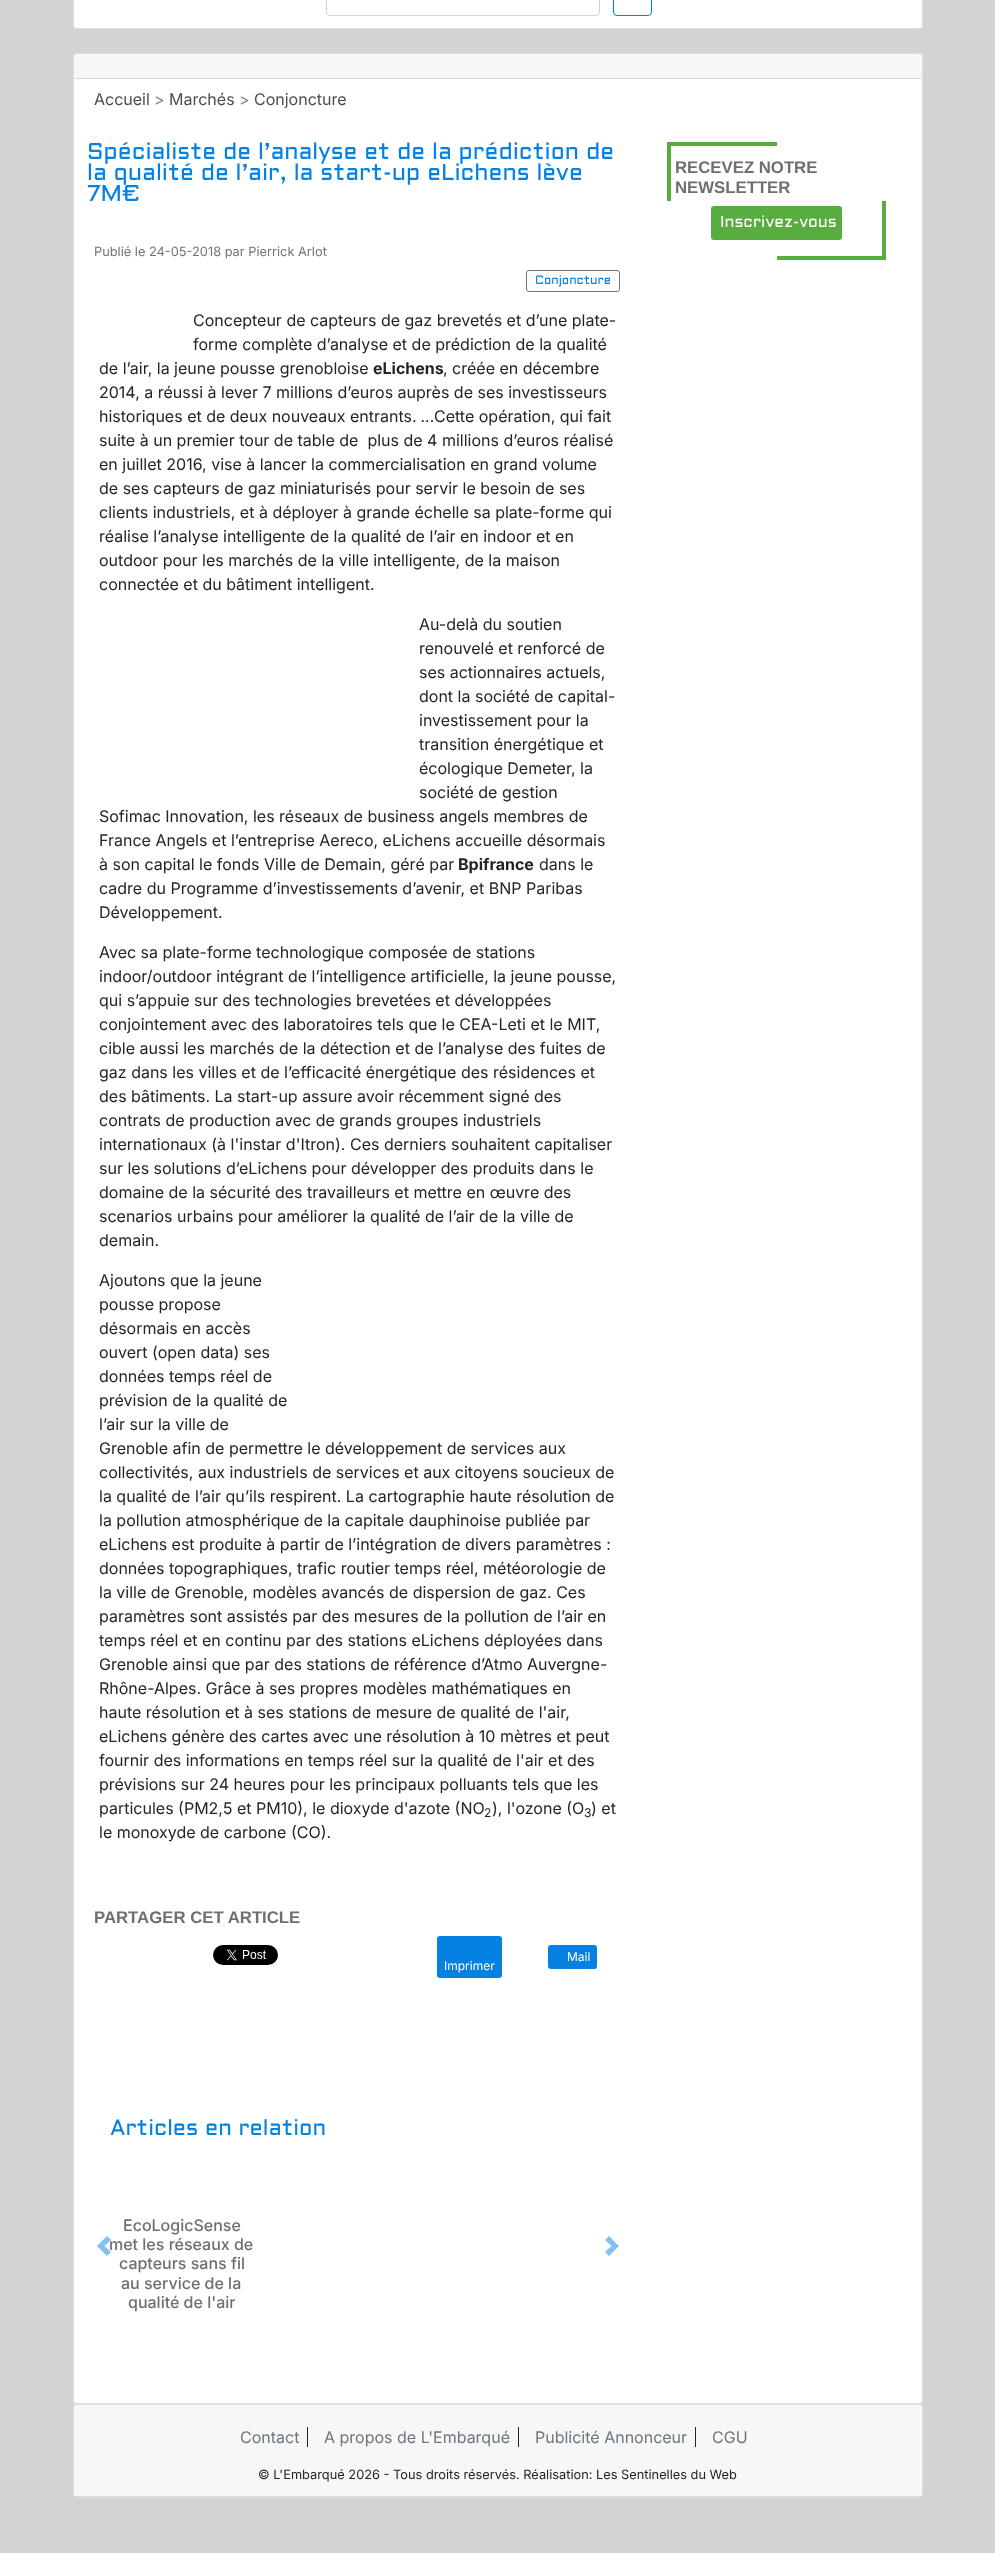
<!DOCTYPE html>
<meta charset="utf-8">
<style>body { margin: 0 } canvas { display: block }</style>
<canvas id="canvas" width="995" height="2553"></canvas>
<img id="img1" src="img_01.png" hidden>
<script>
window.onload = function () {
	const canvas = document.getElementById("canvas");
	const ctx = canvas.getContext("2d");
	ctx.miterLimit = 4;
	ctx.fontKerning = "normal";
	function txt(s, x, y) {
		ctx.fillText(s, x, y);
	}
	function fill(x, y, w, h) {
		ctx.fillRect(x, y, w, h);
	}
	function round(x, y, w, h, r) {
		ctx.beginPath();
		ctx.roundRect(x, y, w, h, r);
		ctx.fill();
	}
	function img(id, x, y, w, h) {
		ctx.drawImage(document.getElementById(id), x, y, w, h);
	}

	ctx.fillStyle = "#D3D3D3";
	fill(0, 0, 995, 2553);
	ctx.fillStyle = "#FFFFFF";
	round(73, -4, 850, 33, 4);
	ctx.beginPath();
	ctx.roundRect(73.5, -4.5, 849, 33, 3.5);
	ctx.strokeStyle = "rgba(0, 0, 0, 0.12)";
	ctx.stroke();
	ctx.beginPath();
	ctx.roundRect(326.5, -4.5, 273, 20, 3.5);
	ctx.strokeStyle = "#CED4DA";
	ctx.stroke();
	ctx.beginPath();
	ctx.roundRect(613.5, -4.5, 38, 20, 3.5);
	ctx.strokeStyle = "#007BFF";
	ctx.stroke();
	round(73, 53, 850, 2351, 4);
	ctx.beginPath();
	ctx.roundRect(73.5, 53.5, 849, 2350, 3.5);
	ctx.strokeStyle = "rgba(0, 0, 0, 0.12)";
	ctx.stroke();
	ctx.fillStyle = "rgba(0, 0, 0, 0.03)";
	fill(74, 54, 848, 24);
	ctx.fillStyle = "#D8D8D8";
	fill(74, 78, 848, 1);
	ctx.beginPath();
	ctx.roundRect(526.5, 270.5, 93, 21, 2.5);
	ctx.strokeStyle = "#6C757D";
	ctx.stroke();
	img("img1", 213, 1945, 65, 20);
	ctx.fillStyle = "#0481E1";
	round(548, 1945, 49, 24, 3);
	round(437, 1936, 65, 42, 3);
	ctx.fillStyle = "#82C0F0";
	ctx.beginPath();
	ctx.moveTo(609, 2236);
	ctx.lineTo(605, 2240);
	ctx.lineTo(611.5, 2246);
	ctx.lineTo(605, 2252);
	ctx.lineTo(609, 2256);
	ctx.lineTo(619, 2246);
	ctx.closePath();
	ctx.fill();
	ctx.fillStyle = "#59AD40";
	fill(667, 142, 110, 4);
	fill(667, 142, 4, 59);
	fill(777, 256, 109, 4);
	fill(882, 201, 4, 59);
	round(711, 206, 131, 34, 3);
	ctx.fillStyle = "#FFFFFF";
	round(73, 2404, 850, 94, 4);
	ctx.beginPath();
	ctx.roundRect(73.5, 2404.5, 849, 93, 3.5);
	ctx.strokeStyle = "rgba(0, 0, 0, 0.12)";
	ctx.stroke();
	ctx.fillStyle = "rgba(0, 0, 0, 0.03)";
	fill(74, 2405, 848, 92);
	ctx.fillStyle = "rgba(0, 0, 0, 0.12)";
	fill(74, 2496, 848, 1);
	ctx.fillStyle = "#212529";
	fill(307, 2427, 1, 20);
	fill(518, 2427, 1, 20);
	fill(695, 2427, 1, 20);
	ctx.font = "16px Inter";
	ctx.fillStyle = "#4D4D4D";
	txt("Accueil", 94, 105);
	ctx.fillStyle = "#808080";
	txt(">", 154, 105);
	ctx.fillStyle = "#4D4D4D";
	txt("Marchés", 169, 105);
	ctx.fillStyle = "#808080";
	txt(">", 239, 105);
	ctx.fillStyle = "#4D4D4D";
	txt("Conjoncture", 254, 105);
	ctx.font = "23px Aldrich";
	ctx.fillStyle = "#0481E1";
	txt("Spécialiste de l’analyse et de la prédiction de", 87, 159);
	txt("la qualité de l’air, la start-up eLichens lève", 87, 180);
	txt("7M€", 87, 201);
	ctx.font = "12.8px Inter";
	ctx.fillStyle = "#6C757D";
	txt("Publié le 24-05-2018 par Pierrick Arlot", 94, 256);
	ctx.font = "12px Aldrich";
	ctx.fillStyle = "#0481E1";
	txt("Conjoncture", 535, 284);
	ctx.font = "16px Inter";
	ctx.fillStyle = "#212529";
	txt("Concepteur de capteurs de gaz brevetés et d’une plate-", 193, 326);
	txt("forme complète d’analyse et de prédiction de la qualité", 193, 350);
	txt("de l’air, la jeune pousse grenobloise", 99, 374);
	ctx.font = "bold 16px Inter";
	txt("eLichens", 373, 374);
	ctx.font = "16px Inter";
	txt(", créée en décembre", 443, 374);
	txt("2014, a réussi à lever 7 millions d’euros auprès de ses investisseurs", 99, 398);
	txt("historiques et de deux nouveaux entrants.", 99, 422);
	ctx.font = "italic 16px Inter";
	txt("...", 421, 422);
	ctx.font = "16px Inter";
	txt("Cette opération, qui fait", 434, 422);
	txt("suite à un premier tour de table de  plus de 4 millions d’euros réalisé", 99, 446);
	txt("en juillet 2016, vise à lancer la commercialisation en grand volume", 99, 470);
	txt("de ses capteurs de gaz miniaturisés pour servir le besoin de ses", 99, 494);
	txt("clients industriels, et à déployer à grande échelle sa plate-forme qui", 99, 518);
	txt("réalise l’analyse intelligente de la qualité de l’air en indoor et en", 99, 542);
	txt("outdoor pour les marchés de la ville intelligente, de la maison", 99, 566);
	txt("connectée et du bâtiment intelligent.", 99, 590);
	txt("Au-delà du soutien", 419, 630);
	txt("renouvelé et renforcé de", 419, 654);
	txt("ses actionnaires actuels,", 419, 678);
	txt("dont la société de capital-", 419, 702);
	txt("investissement pour la", 419, 726);
	txt("transition énergétique et", 419, 750);
	txt("écologique Demeter, la", 419, 774);
	txt("société de gestion", 419, 798);
	txt("Sofimac Innovation, les réseaux de business angels membres de", 99, 822);
	txt("France Angels et l’entreprise Aereco, eLichens accueille désormais", 99, 846);
	txt("à son capital le fonds Ville de Demain, géré par", 99, 870);
	ctx.font = "bold 16px Inter";
	txt("Bpifrance", 458, 870);
	ctx.font = "16px Inter";
	txt("dans le", 539, 870);
	txt("cadre du Programme d’investissements d’avenir, et BNP Paribas", 99, 894);
	txt("Développement.", 99, 918);
	txt("Avec sa plate-forme technologique composée de stations", 99, 958);
	txt("indoor/outdoor intégrant de l’intelligence artificielle, la jeune pousse,", 99, 982);
	txt("qui s’appuie sur des technologies brevetées et développées", 99, 1006);
	txt("conjointement avec des laboratoires tels que le CEA-Leti et le MIT,", 99, 1030);
	txt("cible aussi les marchés de la détection et de l’analyse des fuites de", 99, 1054);
	txt("gaz dans les villes et de l’efficacité énergétique des résidences et", 99, 1078);
	txt("des bâtiments. La start-up assure avoir récemment signé des", 99, 1102);
	txt("contrats de production avec de grands groupes industriels", 99, 1126);
	txt("internationaux (à l'instar d'Itron). Ces derniers souhaitent capitaliser", 99, 1150);
	txt("sur les solutions d’eLichens pour développer des produits dans le", 99, 1174);
	txt("domaine de la sécurité des travailleurs et mettre en œuvre des", 99, 1198);
	txt("scenarios urbains pour améliorer la qualité de l’air de la ville de", 99, 1222);
	txt("demain.", 99, 1246);
	txt("Ajoutons que la jeune", 99, 1286);
	txt("pousse propose", 99, 1310);
	txt("désormais en accès", 99, 1334);
	txt("ouvert (open data) ses", 99, 1358);
	txt("données temps réel de", 99, 1382);
	txt("prévision de la qualité de", 99, 1406);
	txt("l’air sur la ville de", 99, 1430);
	txt("Grenoble afin de permettre le développement de services aux", 99, 1454);
	txt("collectivités, aux industriels de services et aux citoyens soucieux de", 99, 1478);
	txt("la qualité de l’air qu’ils respirent. La cartographie haute résolution de", 99, 1502);
	txt("la pollution atmosphérique de la capitale dauphinoise publiée par", 99, 1526);
	txt("eLichens est produite à partir de l’intégration de divers paramètres :", 99, 1550);
	txt("données topographiques, trafic routier temps réel, météorologie de", 99, 1574);
	txt("la ville de Grenoble, modèles avancés de dispersion de gaz. Ces", 99, 1598);
	txt("paramètres sont assistés par des mesures de la pollution de l’air en", 99, 1622);
	txt("temps réel et en continu par des stations eLichens déployées dans", 99, 1646);
	txt("Grenoble ainsi que par des stations de référence d’Atmo Auvergne-", 99, 1670);
	txt("Rhône-Alpes. Grâce à ses propres modèles mathématiques en", 99, 1694);
	txt("haute résolution et à ses stations de mesure de qualité de l'air,", 99, 1718);
	txt("eLichens génère des cartes avec une résolution à 10 mètres et peut", 99, 1742);
	txt("fournir des informations en temps réel sur la qualité de l'air et des", 99, 1766);
	txt("prévisions sur 24 heures pour les principaux polluants tels que les", 99, 1790);
	txt("particules (PM2,5 et PM10), le dioxyde d'azote (NO", 99, 1814);
	ctx.font = "12px Inter";
	txt("2", 484, 1817);
	ctx.font = "16px Inter";
	txt("), l'ozone (O", 492, 1814);
	ctx.font = "12px Inter";
	txt("3", 584, 1817);
	ctx.font = "16px Inter";
	txt(") et", 591, 1814);
	txt("le monoxyde de carbone (CO).", 99, 1838);
	ctx.font = "bold 16.75px Liberation Sans";
	ctx.fillStyle = "#6F6F6F";
	txt("PARTAGER CET ARTICLE", 94, 1923);
	ctx.font = "12px Inter";
	ctx.fillStyle = "#FFFFFF";
	txt("Mail", 567, 1961);
	txt("Imprimer", 444, 1970);
	ctx.font = "22px Aldrich";
	ctx.fillStyle = "#0481E1";
	txt("Articles en relation", 110, 2135);
	ctx.font = "500 16px Inter";
	ctx.fillStyle = "#6F6F6F";
	txt("EcoLogicSense", 123, 2231);
	txt("met les réseaux de", 109, 2250);
	ctx.fillStyle = "#82C0F0";
	ctx.beginPath();
	ctx.moveTo(107, 2236);
	ctx.lineTo(97, 2246);
	ctx.lineTo(107, 2256);
	ctx.lineTo(111, 2252);
	ctx.lineTo(104.5, 2246);
	ctx.lineTo(111, 2240);
	ctx.closePath();
	ctx.fill();
	ctx.fillStyle = "#6F6F6F";
	txt("capteurs sans fil", 119, 2269);
	txt("au service de la", 121, 2289);
	txt("qualité de l'air", 128, 2308);
	ctx.font = "bold 16.75px Liberation Sans";
	txt("RECEVEZ NOTRE", 675, 173);
	txt("NEWSLETTER", 675, 193);
	ctx.font = "16px Aldrich";
	ctx.fillStyle = "#FFFFFF";
	txt("Inscrivez-vous", 720, 227);
	ctx.font = "16px Inter";
	ctx.fillStyle = "#6C757D";
	txt("Contact", 240, 2443);
	txt("A propos de L'Embarqué", 324, 2443);
	txt("Publicité Annonceur", 535, 2443);
	txt("CGU", 712, 2443);
	ctx.font = "12.8px Inter";
	ctx.fillStyle = "#212529";
	txt("© L'Embarqué 2026 - Tous droits réservés. Réalisation: Les Sentinelles du Web", 258, 2479);
};
</script>
